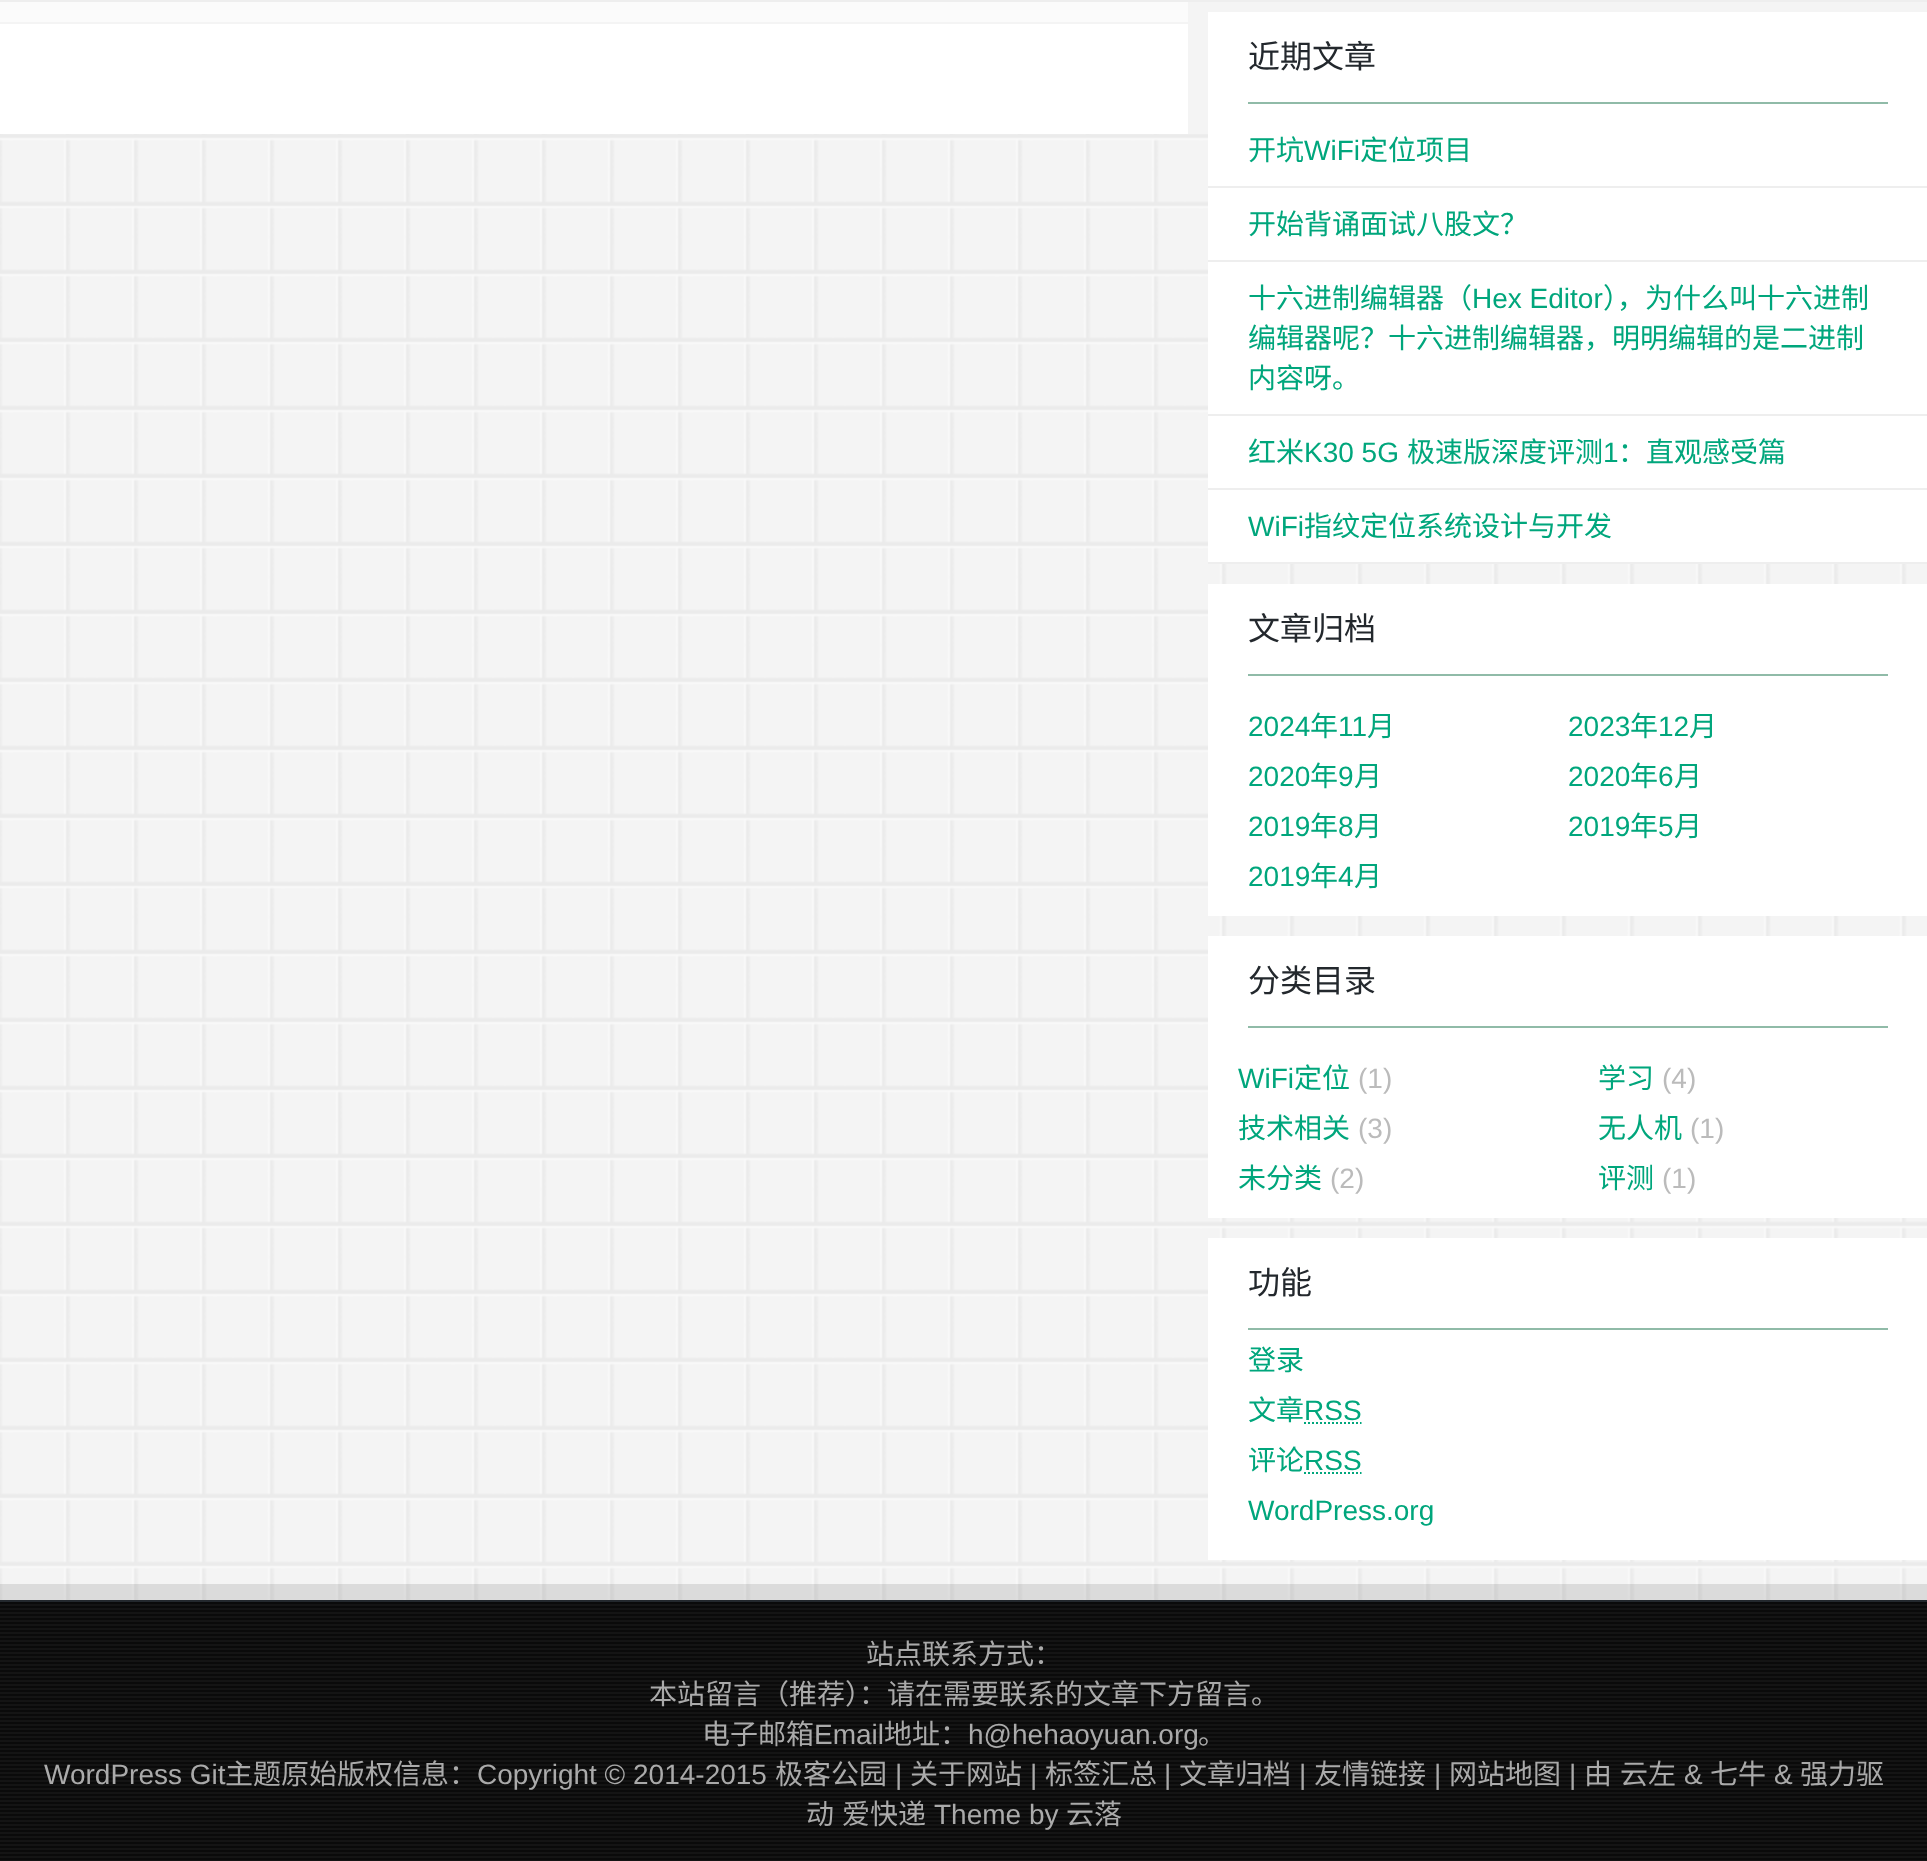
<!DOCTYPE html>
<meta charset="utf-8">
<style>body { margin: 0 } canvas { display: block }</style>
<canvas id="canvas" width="1927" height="1861"></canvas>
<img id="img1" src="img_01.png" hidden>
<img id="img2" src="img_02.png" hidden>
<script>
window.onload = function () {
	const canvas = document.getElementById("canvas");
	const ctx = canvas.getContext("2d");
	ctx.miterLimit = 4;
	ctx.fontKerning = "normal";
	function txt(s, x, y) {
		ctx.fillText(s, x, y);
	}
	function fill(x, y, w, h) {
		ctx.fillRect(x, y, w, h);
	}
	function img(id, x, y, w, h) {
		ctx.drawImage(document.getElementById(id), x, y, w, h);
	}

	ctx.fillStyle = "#EEEEEE";
	fill(0, 0, 1927, 1861);
	img("img1", 0, 134, 1927, 1466);
	ctx.fillStyle = "#F4F4F4";
	fill(0, 2, 1927, 132);
	ctx.fillStyle = "#FBFBFB";
	fill(0, 2, 1188, 20);
	ctx.fillStyle = "#FFFFFF";
	fill(0, 24, 1188, 110);
	fill(1208, 12, 719, 550);
	ctx.fillStyle = "#90BBA8";
	fill(1248, 102, 640, 2);
	ctx.fillStyle = "#EEEEEE";
	fill(1208, 186, 719, 2);
	fill(1208, 260, 719, 2);
	fill(1208, 414, 719, 2);
	fill(1208, 488, 719, 2);
	fill(1208, 562, 719, 2);
	ctx.fillStyle = "#FFFFFF";
	fill(1208, 584, 719, 332);
	ctx.fillStyle = "#90BBA8";
	fill(1248, 674, 640, 2);
	ctx.fillStyle = "#FFFFFF";
	fill(1208, 936, 719, 282);
	ctx.fillStyle = "#90BBA8";
	fill(1248, 1026, 640, 2);
	ctx.fillStyle = "#FFFFFF";
	fill(1208, 1238, 719, 322);
	ctx.fillStyle = "#90BBA8";
	fill(1248, 1328, 640, 2);
	ctx.beginPath();
	ctx.moveTo(1304, 1423);
	ctx.lineTo(1361.5, 1423);
	ctx.strokeStyle = "#00A67C";
	ctx.lineWidth = 2;
	ctx.setLineDash([2, 2]);
	ctx.stroke();
	ctx.beginPath();
	ctx.moveTo(1304, 1473);
	ctx.lineTo(1361.5, 1473);
	ctx.stroke();
	ctx.fillStyle = "rgba(0, 0, 0, 0.1)";
	fill(0, 1584, 1927, 16);
	img("img2", 0, 1602, 1927, 259);
	ctx.fillStyle = "#23282D";
	fill(0, 1600, 1927, 2);
	ctx.font = "32px Noto Sans CJK SC";
	txt("近期文章", 1248, 68);
	ctx.font = "28px Noto Sans CJK SC";
	ctx.fillStyle = "#00A67C";
	txt("开坑", 1248, 160);
	ctx.font = "28px Liberation Sans";
	txt("WiFi", 1304, 160);
	ctx.font = "28px Noto Sans CJK SC";
	txt("定位项目", 1360, 160);
	txt("开始背诵面试八股文？", 1248, 234);
	txt("十六进制编辑器（", 1248, 308);
	ctx.font = "28px Liberation Sans";
	txt("Hex Editor", 1472, 308);
	ctx.font = "28px Noto Sans CJK SC";
	txt("），为什么叫十六进制", 1603, 308);
	txt("编辑器呢？十六进制编辑器，明明编辑的是二进制", 1248, 348);
	txt("内容呀。", 1248, 388);
	txt("红米", 1248, 462);
	ctx.font = "28px Liberation Sans";
	txt("K30 5G", 1304, 462);
	ctx.font = "28px Noto Sans CJK SC";
	txt("极速版深度评测", 1407, 462);
	ctx.font = "28px Liberation Sans";
	txt("1", 1603, 462);
	ctx.font = "28px Noto Sans CJK SC";
	txt("：直观感受篇", 1618, 462);
	ctx.font = "28px Liberation Sans";
	txt("WiFi", 1248, 536);
	ctx.font = "28px Noto Sans CJK SC";
	txt("指纹定位系统设计与开发", 1304, 536);
	ctx.font = "32px Noto Sans CJK SC";
	ctx.fillStyle = "#23282D";
	txt("文章归档", 1248, 640);
	ctx.font = "28px Liberation Sans";
	ctx.fillStyle = "#00A67C";
	txt("2024", 1248, 736);
	ctx.font = "28px Noto Sans CJK SC";
	txt("年", 1310, 736);
	ctx.font = "28px Liberation Sans";
	txt("11", 1338, 736);
	ctx.font = "28px Noto Sans CJK SC";
	txt("月", 1367, 736);
	ctx.font = "28px Liberation Sans";
	txt("2023", 1568, 736);
	ctx.font = "28px Noto Sans CJK SC";
	txt("年", 1630, 736);
	ctx.font = "28px Liberation Sans";
	txt("12", 1658, 736);
	ctx.font = "28px Noto Sans CJK SC";
	txt("月", 1689, 736);
	ctx.font = "28px Liberation Sans";
	txt("2020", 1248, 786);
	ctx.font = "28px Noto Sans CJK SC";
	txt("年", 1310, 786);
	ctx.font = "28px Liberation Sans";
	txt("9", 1338, 786);
	ctx.font = "28px Noto Sans CJK SC";
	txt("月", 1354, 786);
	ctx.font = "28px Liberation Sans";
	txt("2020", 1568, 786);
	ctx.font = "28px Noto Sans CJK SC";
	txt("年", 1630, 786);
	ctx.font = "28px Liberation Sans";
	txt("6", 1658, 786);
	ctx.font = "28px Noto Sans CJK SC";
	txt("月", 1674, 786);
	ctx.font = "28px Liberation Sans";
	txt("2019", 1248, 836);
	ctx.font = "28px Noto Sans CJK SC";
	txt("年", 1310, 836);
	ctx.font = "28px Liberation Sans";
	txt("8", 1338, 836);
	ctx.font = "28px Noto Sans CJK SC";
	txt("月", 1354, 836);
	ctx.font = "28px Liberation Sans";
	txt("2019", 1568, 836);
	ctx.font = "28px Noto Sans CJK SC";
	txt("年", 1630, 836);
	ctx.font = "28px Liberation Sans";
	txt("5", 1658, 836);
	ctx.font = "28px Noto Sans CJK SC";
	txt("月", 1674, 836);
	ctx.font = "28px Liberation Sans";
	txt("2019", 1248, 886);
	ctx.font = "28px Noto Sans CJK SC";
	txt("年", 1310, 886);
	ctx.font = "28px Liberation Sans";
	txt("4", 1338, 886);
	ctx.font = "28px Noto Sans CJK SC";
	txt("月", 1354, 886);
	ctx.font = "32px Noto Sans CJK SC";
	ctx.fillStyle = "#23282D";
	txt("分类目录", 1248, 992);
	ctx.font = "28px Liberation Sans";
	ctx.fillStyle = "#00A67C";
	txt("WiFi", 1238, 1088);
	ctx.font = "28px Noto Sans CJK SC";
	txt("定位", 1294, 1088);
	ctx.font = "28px Liberation Sans";
	ctx.fillStyle = "#BBBBBB";
	txt("(1)", 1358, 1088);
	ctx.font = "28px Noto Sans CJK SC";
	ctx.fillStyle = "#00A67C";
	txt("学习", 1598, 1088);
	ctx.font = "28px Liberation Sans";
	ctx.fillStyle = "#BBBBBB";
	txt("(4)", 1662, 1088);
	ctx.font = "28px Noto Sans CJK SC";
	ctx.fillStyle = "#00A67C";
	txt("技术相关", 1238, 1138);
	ctx.font = "28px Liberation Sans";
	ctx.fillStyle = "#BBBBBB";
	txt("(3)", 1358, 1138);
	ctx.font = "28px Noto Sans CJK SC";
	ctx.fillStyle = "#00A67C";
	txt("无人机", 1598, 1138);
	ctx.font = "28px Liberation Sans";
	ctx.fillStyle = "#BBBBBB";
	txt("(1)", 1690, 1138);
	ctx.font = "28px Noto Sans CJK SC";
	ctx.fillStyle = "#00A67C";
	txt("未分类", 1238, 1188);
	ctx.font = "28px Liberation Sans";
	ctx.fillStyle = "#BBBBBB";
	txt("(2)", 1330, 1188);
	ctx.font = "28px Noto Sans CJK SC";
	ctx.fillStyle = "#00A67C";
	txt("评测", 1598, 1188);
	ctx.font = "28px Liberation Sans";
	ctx.fillStyle = "#BBBBBB";
	txt("(1)", 1662, 1188);
	ctx.font = "32px Noto Sans CJK SC";
	ctx.fillStyle = "#23282D";
	txt("功能", 1248, 1294);
	ctx.font = "28px Noto Sans CJK SC";
	ctx.fillStyle = "#00A67C";
	txt("登录", 1248, 1370);
	txt("文章", 1248, 1420);
	ctx.font = "28px Liberation Sans";
	txt("RSS", 1304, 1420);
	ctx.font = "28px Noto Sans CJK SC";
	txt("评论", 1248, 1470);
	ctx.font = "28px Liberation Sans";
	txt("RSS", 1304, 1470);
	txt("WordPress.org", 1248, 1520);
	ctx.font = "28px Noto Sans CJK SC";
	ctx.fillStyle = "#AAAAAA";
	txt("站点联系方式：", 866, 1664);
	txt("本站留言（推荐）：请在需要联系的文章下方留言。", 649, 1704);
	txt("电子邮箱", 702, 1744);
	ctx.font = "28px Liberation Sans";
	txt("Email", 814, 1744);
	ctx.font = "28px Noto Sans CJK SC";
	txt("地址：", 884, 1744);
	ctx.font = "28px Liberation Sans";
	txt("h@hehaoyuan.org", 968, 1744);
	ctx.font = "28px Noto Sans CJK SC";
	txt("。", 1198, 1744);
	ctx.font = "28px Liberation Sans";
	txt("WordPress Git", 44, 1784);
	ctx.font = "28px Noto Sans CJK SC";
	txt("主题原始版权信息：", 225, 1784);
	ctx.font = "28px Liberation Sans";
	txt("Copyright © 2014-2015", 477, 1784);
	ctx.font = "28px Noto Sans CJK SC";
	txt("极客公园", 775, 1784);
	ctx.font = "28px Liberation Sans";
	txt("|", 895, 1784);
	ctx.font = "28px Noto Sans CJK SC";
	txt("关于网站", 910, 1784);
	ctx.font = "28px Liberation Sans";
	txt("|", 1030, 1784);
	ctx.font = "28px Noto Sans CJK SC";
	txt("标签汇总", 1045, 1784);
	ctx.font = "28px Liberation Sans";
	txt("|", 1164, 1784);
	ctx.font = "28px Noto Sans CJK SC";
	txt("文章归档", 1179, 1784);
	ctx.font = "28px Liberation Sans";
	txt("|", 1299, 1784);
	ctx.font = "28px Noto Sans CJK SC";
	txt("友情链接", 1314, 1784);
	ctx.font = "28px Liberation Sans";
	txt("|", 1434, 1784);
	ctx.font = "28px Noto Sans CJK SC";
	txt("网站地图", 1449, 1784);
	ctx.font = "28px Liberation Sans";
	txt("|", 1569, 1784);
	ctx.font = "28px Noto Sans CJK SC";
	txt("由", 1584, 1784);
	txt("云左", 1620, 1784);
	ctx.font = "28px Liberation Sans";
	txt("&", 1684, 1784);
	ctx.font = "28px Noto Sans CJK SC";
	txt("七牛", 1710, 1784);
	ctx.font = "28px Liberation Sans";
	txt("&", 1774, 1784);
	ctx.font = "28px Noto Sans CJK SC";
	txt("强力驱", 1800, 1784);
	txt("动", 806, 1824);
	txt("爱快递", 842, 1824);
	ctx.font = "28px Liberation Sans";
	txt("Theme by", 934, 1824);
	ctx.font = "28px Noto Sans CJK SC";
	txt("云落", 1066, 1824);
};
</script>
